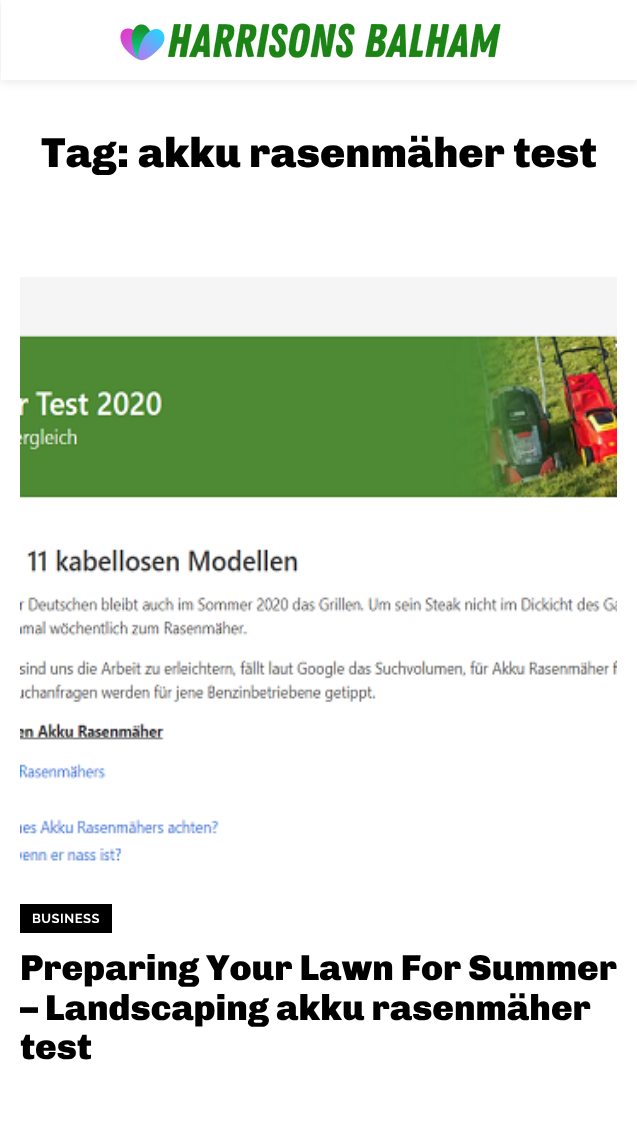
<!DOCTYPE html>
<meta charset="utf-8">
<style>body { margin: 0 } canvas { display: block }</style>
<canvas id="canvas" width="637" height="1127"></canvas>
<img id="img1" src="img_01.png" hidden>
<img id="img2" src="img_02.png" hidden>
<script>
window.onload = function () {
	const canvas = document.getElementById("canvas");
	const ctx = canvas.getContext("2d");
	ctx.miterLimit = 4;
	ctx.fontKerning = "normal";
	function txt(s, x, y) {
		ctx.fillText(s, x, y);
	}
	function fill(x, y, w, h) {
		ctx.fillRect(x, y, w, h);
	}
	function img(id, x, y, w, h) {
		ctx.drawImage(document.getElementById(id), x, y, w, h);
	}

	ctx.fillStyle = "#FFFFFF";
	fill(0, 0, 637, 1127);
	img("img1", 120, 23, 381, 38);
	ctx.save();
	ctx.beginPath();
	ctx.moveTo(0, 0);
	ctx.lineTo(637, 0);
	ctx.lineTo(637, 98);
	ctx.lineTo(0, 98);
	ctx.closePath();
	ctx.moveTo(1, 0);
	ctx.lineTo(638, 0);
	ctx.lineTo(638, 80);
	ctx.lineTo(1, 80);
	ctx.closePath();
	ctx.clip("evenodd");
	ctx.fillStyle = "rgba(0, 0, 0, 0.09)";
	ctx.filter = "blur(5px)";
	ctx.beginPath();
	ctx.rect(1, 2, 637, 80);
	ctx.fill();
	ctx.filter = "none";
	ctx.restore();
	img("img2", 20, 277, 597, 584);
	ctx.fillStyle = "#000000";
	fill(20, 904, 92, 29);
	ctx.font = "900 42px Chivo";
	txt("Tag: akku rasenmäher test", 41, 167);
	ctx.letterSpacing = "0.5px";
	ctx.font = "bold 13px Raleway";
	ctx.fillStyle = "#FFFFFF";
	txt("BUSINESS", 32, 923);
	ctx.letterSpacing = "0px";
	ctx.font = "900 36px Chivo";
	ctx.fillStyle = "#000000";
	txt("Preparing Your Lawn For Summer", 20, 980);
	txt("– Landscaping akku rasenmäher", 20, 1020);
	txt("test", 20, 1059);
};
</script>
